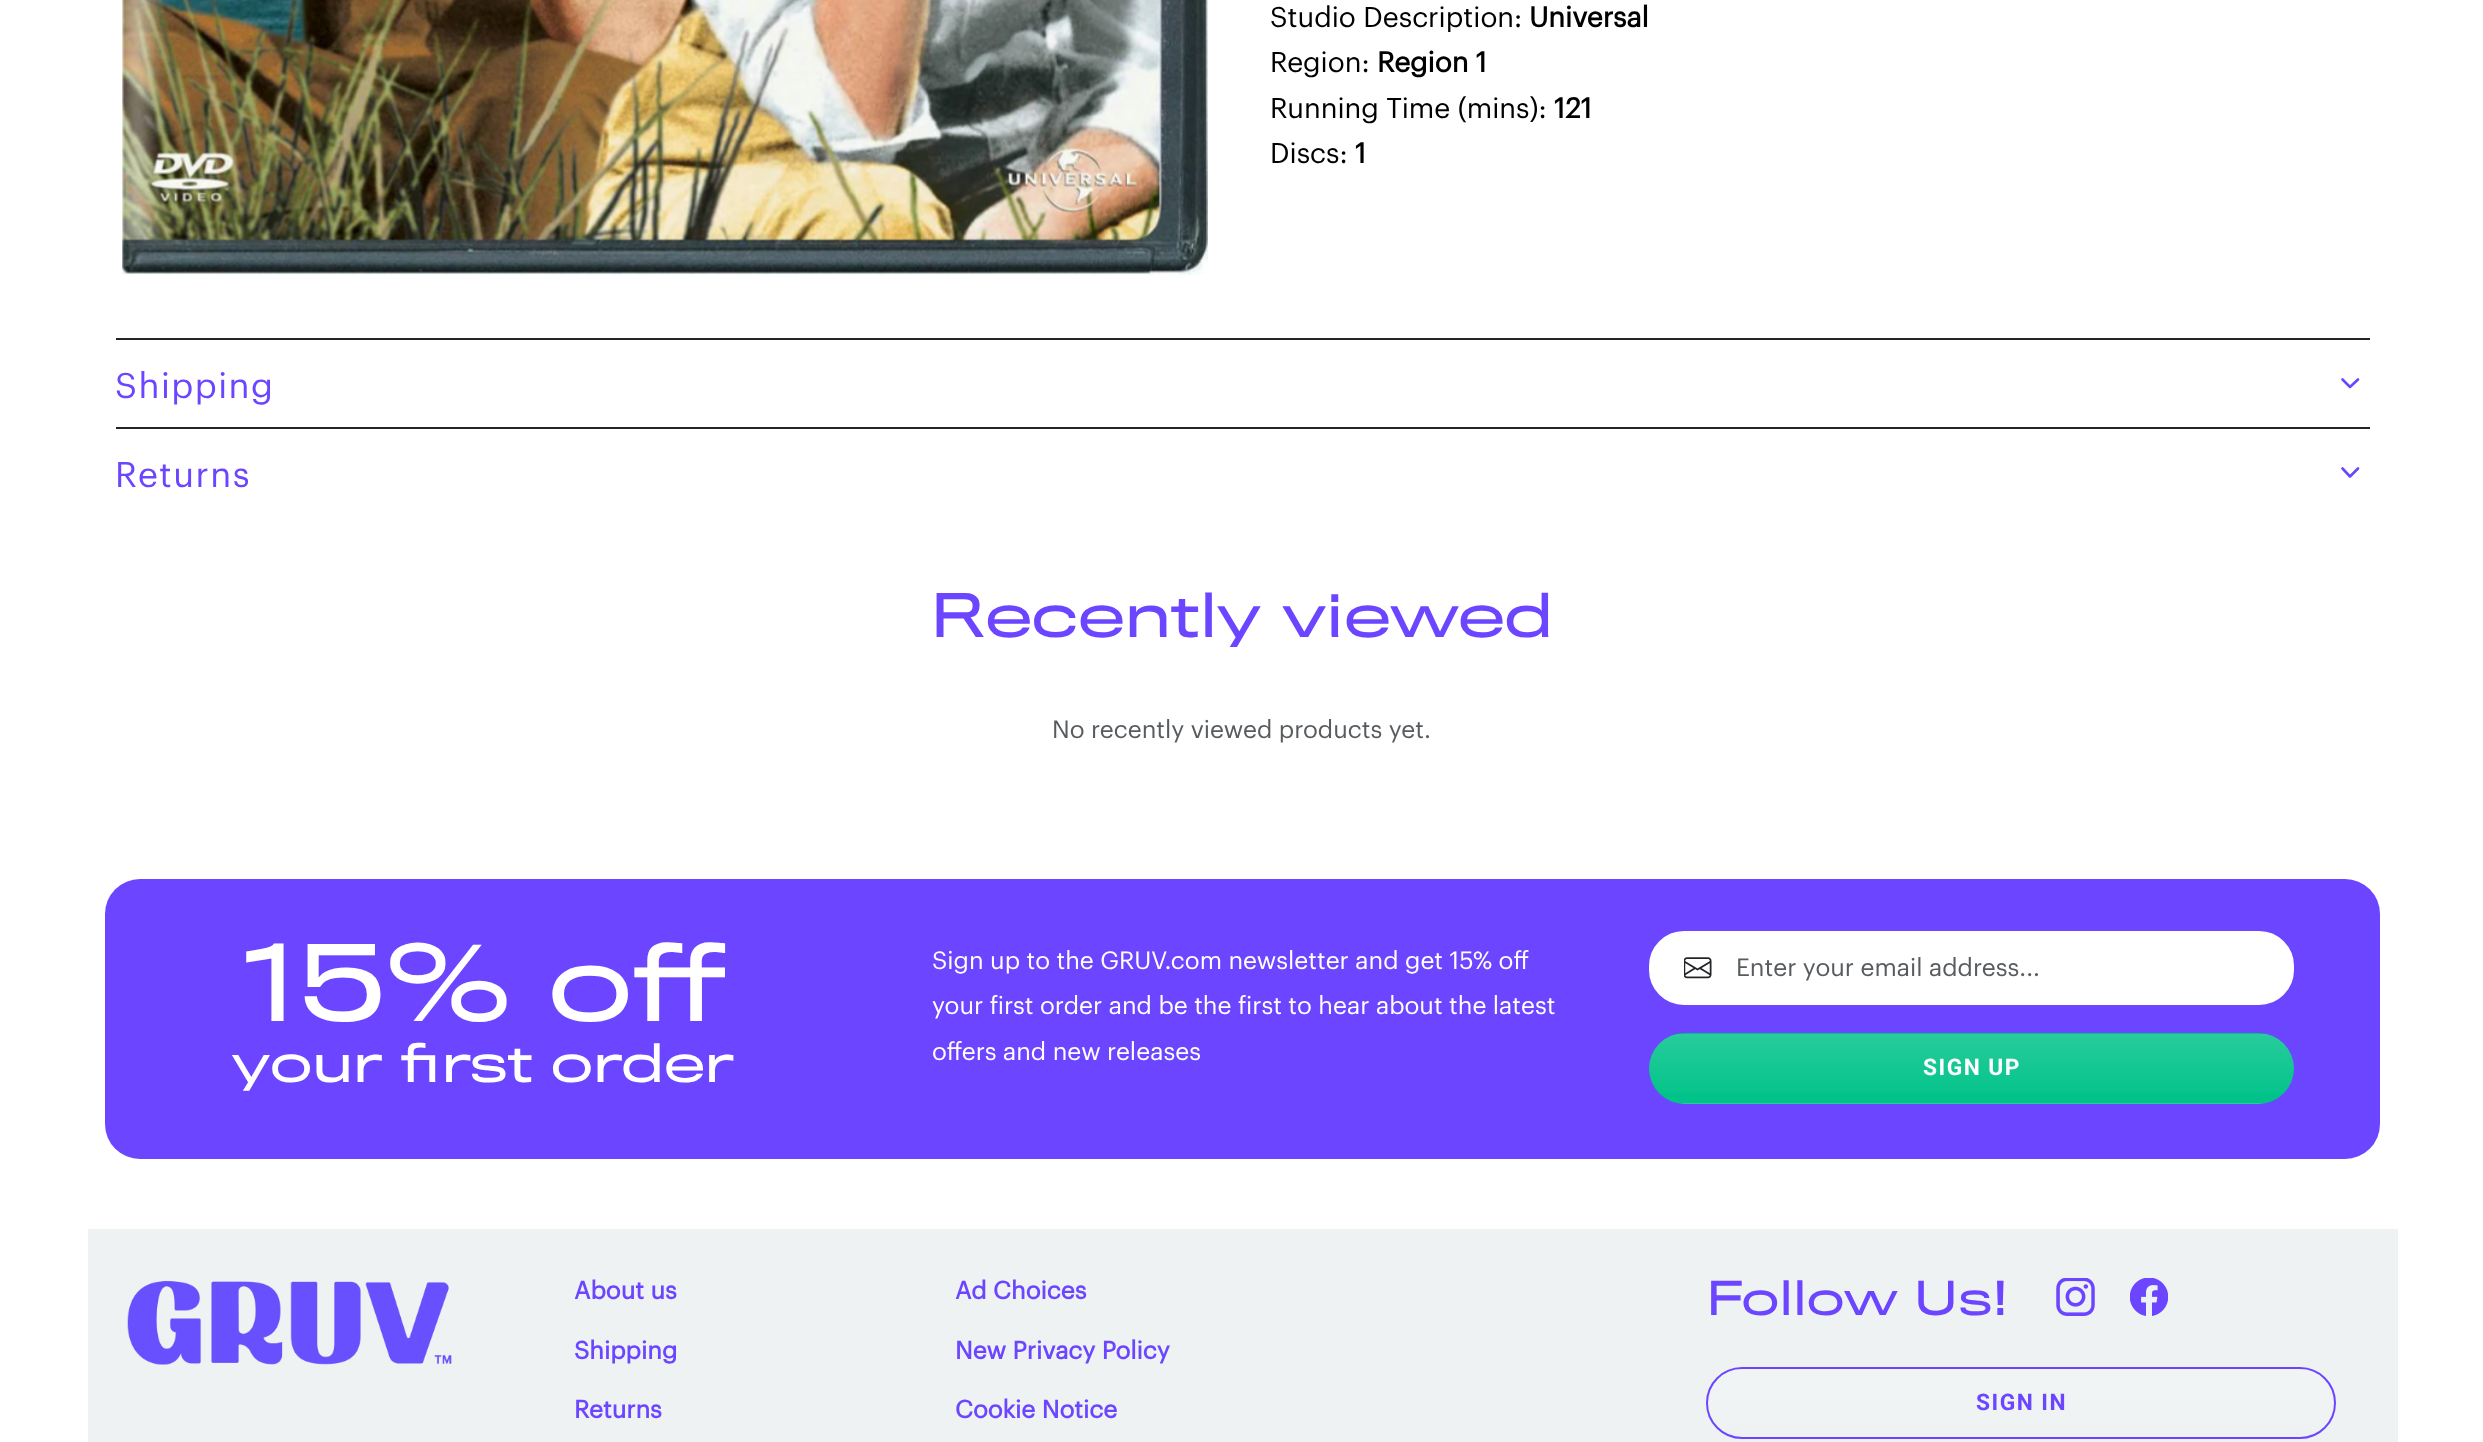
<!DOCTYPE html>
<meta charset="utf-8">
<style>body { margin: 0 } canvas { display: block }</style>
<canvas id="canvas" width="2483" height="1442"></canvas>
<img id="img1" src="img_01.png" hidden>
<img id="img2" src="img_02.png" hidden>
<img id="img3" src="img_03.png" hidden>
<img id="img4" src="img_04.png" hidden>
<img id="img5" src="img_05.png" hidden>
<script>
window.onload = function () {
	const canvas = document.getElementById("canvas");
	const ctx = canvas.getContext("2d");
	ctx.miterLimit = 4;
	ctx.fontKerning = "normal";
	function txt(s, x, y) {
		ctx.fillText(s, x, y);
	}
	function fill(x, y, w, h) {
		ctx.fillRect(x, y, w, h);
	}
	function round(x, y, w, h, r) {
		ctx.beginPath();
		ctx.roundRect(x, y, w, h, r);
		ctx.fill();
	}
	function img(id, x, y, w, h) {
		ctx.drawImage(document.getElementById(id), x, y, w, h);
	}
	let gradient;

	ctx.fillStyle = "#FFFFFF";
	fill(0, 0, 2483, 1442);
	img("img1", 122, 0, 1086, 275);
	ctx.fillStyle = "#212529";
	fill(116, 338, 2254, 2);
	ctx.beginPath();
	ctx.moveTo(2342.5, 379.5);
	ctx.lineTo(2350, 387);
	ctx.lineTo(2358, 379.5);
	ctx.strokeStyle = "#6B45FF";
	ctx.lineWidth = 2.6;
	ctx.lineCap = "round";
	ctx.lineJoin = "round";
	ctx.stroke();
	fill(116, 427, 2254, 2);
	ctx.beginPath();
	ctx.moveTo(2342.5, 468.5);
	ctx.lineTo(2350, 476.5);
	ctx.lineTo(2358, 468.5);
	ctx.stroke();
	ctx.fillStyle = "#6B45FF";
	round(105, 879, 2275, 280, 35);
	ctx.fillStyle = "#FFFFFF";
	ctx.beginPath();
	ctx.roundRect(1655, 937, 633, 62, 29);
	ctx.fill();
	ctx.strokeStyle = "#FFFFFF";
	ctx.lineWidth = 12;
	ctx.lineJoin = "miter";
	ctx.stroke();
	img("img2", 1684, 957, 28, 22);
	ctx.fillStyle = "#01C389";
	round(1649, 1033, 645, 71, 35.5);
	ctx.save();
	ctx.beginPath();
	ctx.roundRect(1649, 1033, 645, 71, 35.5);
	ctx.clip();
	gradient = ctx.createLinearGradient(1971, 1034, 1971, 1103);
	gradient.addColorStop(0, "rgba(255, 255, 255, 0.15)");
	gradient.addColorStop(1, "rgba(255, 255, 255, 0)");
	ctx.fillStyle = gradient;
	fill(1649, 1034, 645, 59);
	gradient = ctx.createLinearGradient(1971, 1103, 1971, 1171);
	gradient.addColorStop(0, "rgba(255, 255, 255, 0.15)");
	gradient.addColorStop(1, "rgba(255, 255, 255, 0)");
	ctx.fillStyle = gradient;
	fill(1677, 1103, 589, 1);
	ctx.restore();
	ctx.fillStyle = "#EEF2F2";
	fill(88, 1229, 2310, 213);
	img("img3", 127, 1280, 325, 85);
	img("img4", 2056, 1278, 39, 38);
	img("img5", 2130, 1278, 38, 38);
	ctx.save();
	ctx.beginPath();
	ctx.roundRect(1706, 1367, 630, 72, 36);
	ctx.clip();
	gradient = ctx.createLinearGradient(2021, 1369, 2021, 1437);
	gradient.addColorStop(0, "#F1F4F4");
	gradient.addColorStop(1, "#EEF2F2");
	ctx.fillStyle = gradient;
	fill(1706, 1369, 630, 68);
	ctx.restore();
	ctx.beginPath();
	ctx.roundRect(1707, 1368, 628, 70, 35);
	ctx.strokeStyle = "#6B45FF";
	ctx.lineWidth = 2;
	ctx.stroke();
	ctx.font = "28px Graphik";
	ctx.fillStyle = "#000000";
	txt("Studio Description:", 1270, 27);
	ctx.font = "bold 28px Graphik";
	txt("Universal", 1529, 27);
	ctx.font = "28px Graphik";
	txt("Region:", 1270, 72);
	ctx.font = "bold 28px Graphik";
	txt("Region 1", 1377, 72);
	ctx.font = "28px Graphik";
	txt("Running Time (mins):", 1270, 118);
	ctx.font = "bold 28px Graphik";
	txt("121", 1554, 118);
	ctx.font = "28px Graphik";
	txt("Discs:", 1270, 163);
	ctx.font = "bold 28px Graphik";
	txt("1", 1355, 163);
	ctx.letterSpacing = "1.5px";
	ctx.font = "35px Graphik";
	ctx.fillStyle = "#6B45FF";
	txt("Shipping", 115, 398);
	txt("Returns", 115, 487);
	ctx.letterSpacing = "0px";
	ctx.font = "56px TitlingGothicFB";
	txt("Recently viewed", 930, 637);
	ctx.font = "24.5px Graphik";
	ctx.fillStyle = "#595C5F";
	txt("No recently viewed products yet.", 1052, 738);
	ctx.font = "98px TitlingGothicFB";
	ctx.fillStyle = "#FFFFFF";
	txt("15% off", 240, 1021);
	ctx.font = "49px TitlingGothicFB";
	txt("your first order", 232, 1082);
	ctx.font = "24.5px Graphik";
	txt("Sign up to the GRUV.com newsletter and get 15% off", 932, 969);
	txt("your first order and be the first to hear about the latest", 932, 1014);
	txt("offers and new releases", 932, 1060);
	ctx.fillStyle = "#595C5F";
	txt("Enter your email address...", 1736, 976);
	ctx.letterSpacing = "1.5px";
	ctx.font = "bold 22.75px Roboto";
	ctx.fillStyle = "#FFFFFF";
	txt("SIGN UP", 1923, 1075);
	ctx.letterSpacing = "0px";
	ctx.font = "bold 24.5px Graphik";
	ctx.fillStyle = "#6B45FF";
	txt("About us", 574, 1299);
	txt("Shipping", 574, 1359);
	txt("Returns", 574, 1418);
	txt("Ad Choices", 955, 1299);
	txt("New Privacy Policy", 955, 1359);
	txt("Cookie Notice", 955, 1418);
	ctx.font = "43.75px TitlingGothicFB";
	txt("Follow Us!", 1706, 1315);
	ctx.letterSpacing = "1.5px";
	ctx.font = "bold 22.75px Roboto";
	txt("SIGN IN", 1976, 1410);
};
</script>
